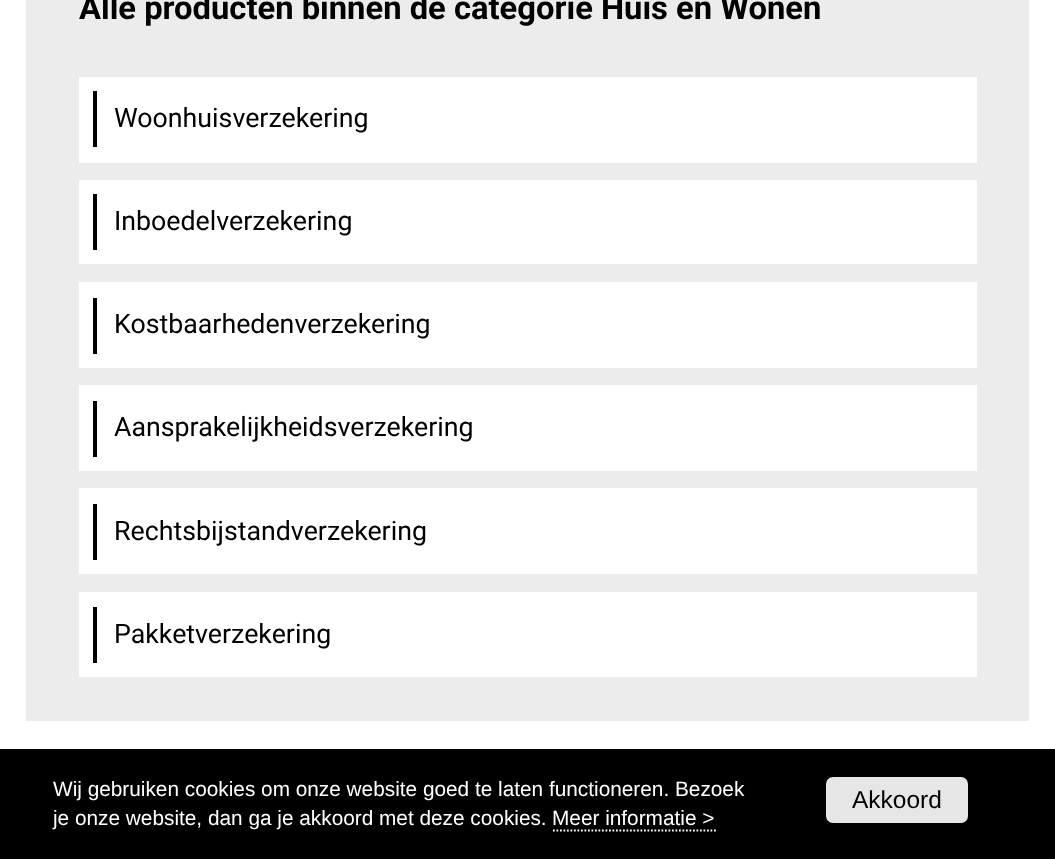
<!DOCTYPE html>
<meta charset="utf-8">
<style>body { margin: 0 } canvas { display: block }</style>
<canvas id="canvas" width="1055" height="859"></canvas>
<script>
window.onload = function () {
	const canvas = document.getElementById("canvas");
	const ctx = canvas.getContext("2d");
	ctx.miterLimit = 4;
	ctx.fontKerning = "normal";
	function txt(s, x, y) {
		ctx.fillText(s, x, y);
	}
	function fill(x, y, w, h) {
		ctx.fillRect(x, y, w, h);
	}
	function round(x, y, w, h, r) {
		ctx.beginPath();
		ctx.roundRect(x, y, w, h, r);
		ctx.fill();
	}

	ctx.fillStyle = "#FFFFFF";
	fill(0, 0, 1055, 859);
	ctx.fillStyle = "#ECECED";
	fill(26, 0, 1003, 721);
	ctx.fillStyle = "#FFFFFF";
	fill(79, 77, 898, 86);
	ctx.fillStyle = "#000000";
	fill(93, 91, 4, 56);
	ctx.fillStyle = "#FFFFFF";
	fill(79, 180, 898, 84);
	ctx.fillStyle = "#000000";
	fill(93, 194, 4, 56);
	ctx.fillStyle = "#FFFFFF";
	fill(79, 282, 898, 86);
	ctx.fillStyle = "#000000";
	fill(93, 298, 4, 56);
	ctx.fillStyle = "#FFFFFF";
	fill(79, 385, 898, 86);
	ctx.fillStyle = "#000000";
	fill(93, 401, 4, 56);
	ctx.fillStyle = "#FFFFFF";
	fill(79, 488, 898, 86);
	ctx.fillStyle = "#000000";
	fill(93, 504, 4, 56);
	ctx.fillStyle = "#FFFFFF";
	fill(79, 592, 898, 85);
	ctx.fillStyle = "#000000";
	fill(93, 607, 4, 56);
	fill(0, 749, 1055, 110);
	ctx.beginPath();
	ctx.moveTo(553, 830.5);
	ctx.lineTo(716, 830.5);
	ctx.strokeStyle = "#FFFFFF";
	ctx.lineWidth = 1.8;
	ctx.setLineDash([1.75, 1.75]);
	ctx.stroke();
	ctx.fillStyle = "#E6E6E6";
	round(826, 777, 142, 46, 7);
	ctx.font = "bold 32.75px Roboto";
	ctx.fillStyle = "#000000";
	txt("Alle producten binnen de categorie Huis en Wonen", 79, 19);
	ctx.font = "26.75px Roboto";
	txt("Woonhuisverzekering", 114, 127);
	txt("Inboedelverzekering", 114, 230);
	txt("Kostbaarhedenverzekering", 114, 333);
	txt("Aansprakelijkheidsverzekering", 114, 436);
	txt("Rechtsbijstandverzekering", 114, 540);
	txt("Pakketverzekering", 114, 643);
	ctx.font = "20.8px Liberation Sans";
	ctx.fillStyle = "#FFFFFF";
	txt("Wij gebruiken cookies om onze website goed te laten functioneren. Bezoek", 53, 796);
	txt("je onze website, dan ga je akkoord met deze cookies.", 53, 825);
	txt("Meer informatie >", 552, 825);
	ctx.font = "24.5px Liberation Sans";
	ctx.fillStyle = "#000000";
	txt("Akkoord", 852, 808);
};
</script>
